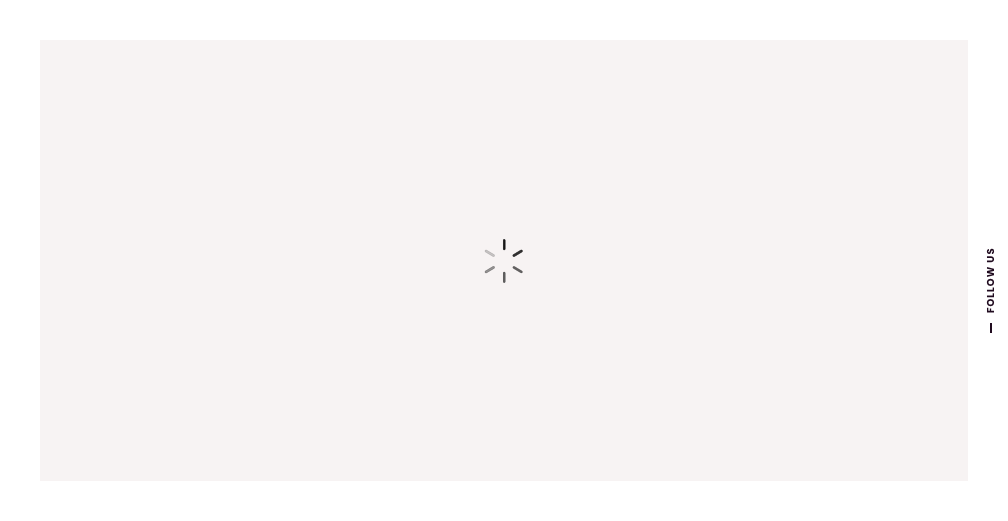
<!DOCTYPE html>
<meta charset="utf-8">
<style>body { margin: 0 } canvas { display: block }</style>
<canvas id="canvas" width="1008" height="521"></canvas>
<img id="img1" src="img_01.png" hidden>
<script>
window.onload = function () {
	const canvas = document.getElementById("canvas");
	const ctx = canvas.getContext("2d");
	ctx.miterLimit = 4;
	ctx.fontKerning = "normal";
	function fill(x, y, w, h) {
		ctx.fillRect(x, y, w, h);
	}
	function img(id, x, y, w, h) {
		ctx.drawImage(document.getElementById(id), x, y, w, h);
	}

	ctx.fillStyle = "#F7F3F3";
	fill(0, 0, 1008, 521);
	ctx.strokeStyle = "#FFFFFF";
	ctx.lineWidth = 40;
	ctx.strokeRect(20, 20, 968, 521);
	img("img1", 484, 239, 39, 44);
	ctx.fillStyle = "#210C20";
	fill(990, 323, 2, 10);
	ctx.fillStyle = "#FFFFFF";
	fill(40, 481, 928, 40);
	ctx.letterSpacing = "1px";
	ctx.font = "bold 10px Poppins";
	ctx.fillStyle = "#210C20";
	ctx.save();
	ctx.translate(994, 313);
	ctx.rotate(-90 * Math.PI / 180);
	ctx.fillText("FOLLOW US", 0, 0);
	ctx.restore();
};
</script>
